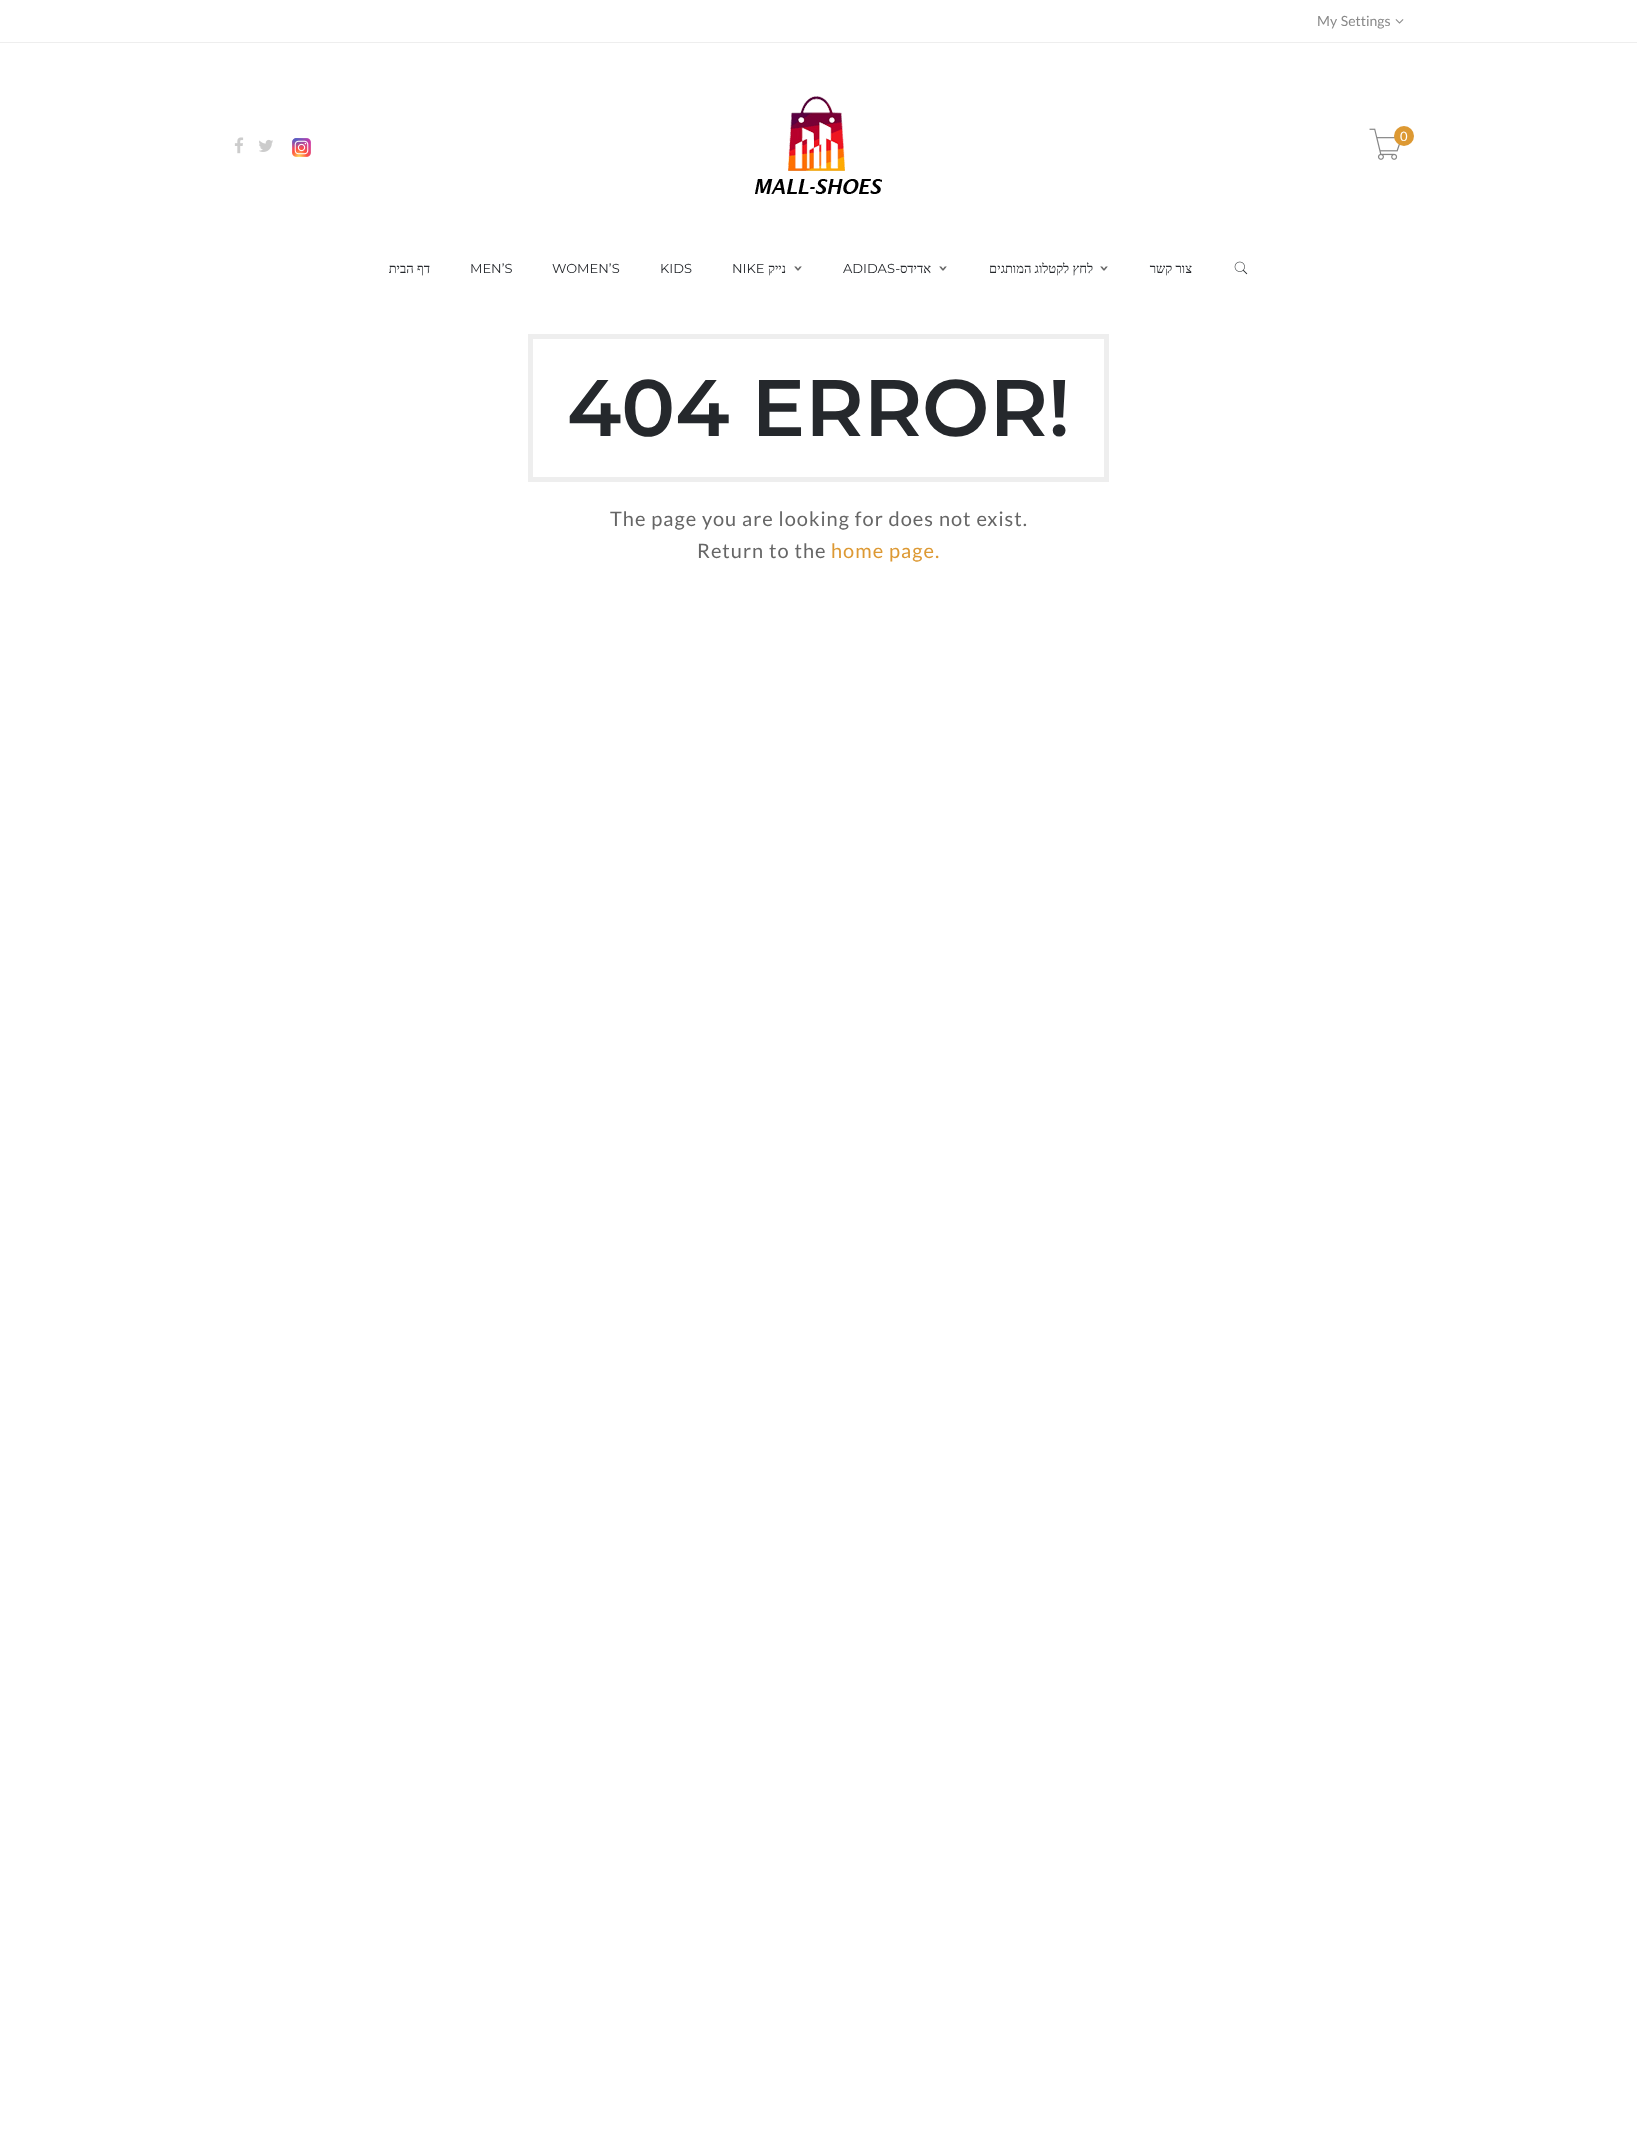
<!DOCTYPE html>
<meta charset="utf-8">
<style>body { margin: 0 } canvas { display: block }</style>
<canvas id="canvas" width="1637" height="2130"></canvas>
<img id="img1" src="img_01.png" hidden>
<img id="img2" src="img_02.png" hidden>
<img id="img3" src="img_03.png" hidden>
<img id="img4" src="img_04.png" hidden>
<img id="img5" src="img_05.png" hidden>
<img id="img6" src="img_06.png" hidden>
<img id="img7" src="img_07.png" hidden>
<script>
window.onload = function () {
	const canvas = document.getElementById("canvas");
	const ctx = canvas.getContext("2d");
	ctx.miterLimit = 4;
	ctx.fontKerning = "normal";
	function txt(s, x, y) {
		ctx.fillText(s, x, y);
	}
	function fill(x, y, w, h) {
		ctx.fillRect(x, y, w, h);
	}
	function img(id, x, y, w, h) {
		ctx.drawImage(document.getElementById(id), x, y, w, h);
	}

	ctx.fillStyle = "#FFFFFF";
	fill(0, 0, 1637, 2130);
	ctx.fillStyle = "#EEEEEE";
	fill(0, 42, 1637, 1);
	img("img1", 1395, 19, 9, 5);
	img("img2", 234, 137, 10, 17);
	img("img3", 259, 139, 14, 13);
	img("img4", 292, 138, 19, 19);
	img("img5", 755, 96, 127, 98);
	img("img6", 1369, 128, 31, 32);
	ctx.fillStyle = "#DD9933";
	ctx.beginPath();
	ctx.arc(1404, 136, 10, 0, Math.PI * 2);
	ctx.fill();
	img("img7", 1234, 261, 14, 14);
	ctx.strokeStyle = "#EEEEEE";
	ctx.lineWidth = 5;
	ctx.strokeRect(530.5, 336.5, 576, 143);
	ctx.wordSpacing = "1px";
	ctx.font = "14px Lato";
	ctx.fillStyle = "#888888";
	txt("My Settings", 1317, 26);
	ctx.wordSpacing = "0px";
	ctx.font = "13px Lato";
	ctx.fillStyle = "#FFFFFF";
	txt("0", 1400, 141);
	ctx.direction = "rtl";
	ctx.font = "13px Liberation Serif";
	ctx.fillStyle = "#25282C";
	txt("דף הבית", 430, 273);
	ctx.direction = "ltr";
	ctx.font = "13px Montserrat";
	txt("MEN’S", 470, 273);
	txt("WOMEN’S", 552, 273);
	txt("KIDS", 660, 273);
	txt("NIKE", 732, 273);
	ctx.direction = "rtl";
	ctx.font = "13px Liberation Serif";
	txt("נייק", 786, 273);
	ctx.direction = "ltr";
	ctx.font = "bold 17px DejaVu Sans Mono";
	ctx.fillStyle = "#666666";
	ctx.save();
	ctx.translate(793, 263);
	ctx.rotate(90 * Math.PI / 180);
	ctx.fillText("›", 0, 0);
	ctx.restore();
	ctx.font = "13px Montserrat";
	ctx.fillStyle = "#25282C";
	txt("ADIDAS-", 843, 273);
	ctx.direction = "rtl";
	ctx.font = "13px Liberation Serif";
	txt("אדידס", 931, 273);
	ctx.direction = "ltr";
	ctx.font = "bold 17px DejaVu Sans Mono";
	ctx.fillStyle = "#666666";
	ctx.save();
	ctx.translate(938, 263);
	ctx.rotate(90 * Math.PI / 180);
	ctx.fillText("›", 0, 0);
	ctx.restore();
	ctx.direction = "rtl";
	ctx.font = "13px Liberation Serif";
	ctx.fillStyle = "#25282C";
	txt("לחץ לקטלוג המותגים", 1093, 273);
	ctx.direction = "ltr";
	ctx.font = "bold 17px DejaVu Sans Mono";
	ctx.fillStyle = "#666666";
	ctx.save();
	ctx.translate(1099, 263);
	ctx.rotate(90 * Math.PI / 180);
	ctx.fillText("›", 0, 0);
	ctx.restore();
	ctx.direction = "rtl";
	ctx.font = "13px Liberation Serif";
	ctx.fillStyle = "#25282C";
	txt("צור קשר", 1192, 273);
	ctx.direction = "ltr";
	ctx.font = "600 80px Montserrat";
	txt("404 ERROR!", 567, 436);
	ctx.letterSpacing = "1px";
	ctx.font = "20px Lato";
	ctx.fillStyle = "#666666";
	txt("The page you are looking for does not exist.", 610, 526);
	txt("Return to the", 697, 558);
	ctx.fillStyle = "#DD9933";
	txt("home page.", 831, 558);
};
</script>
